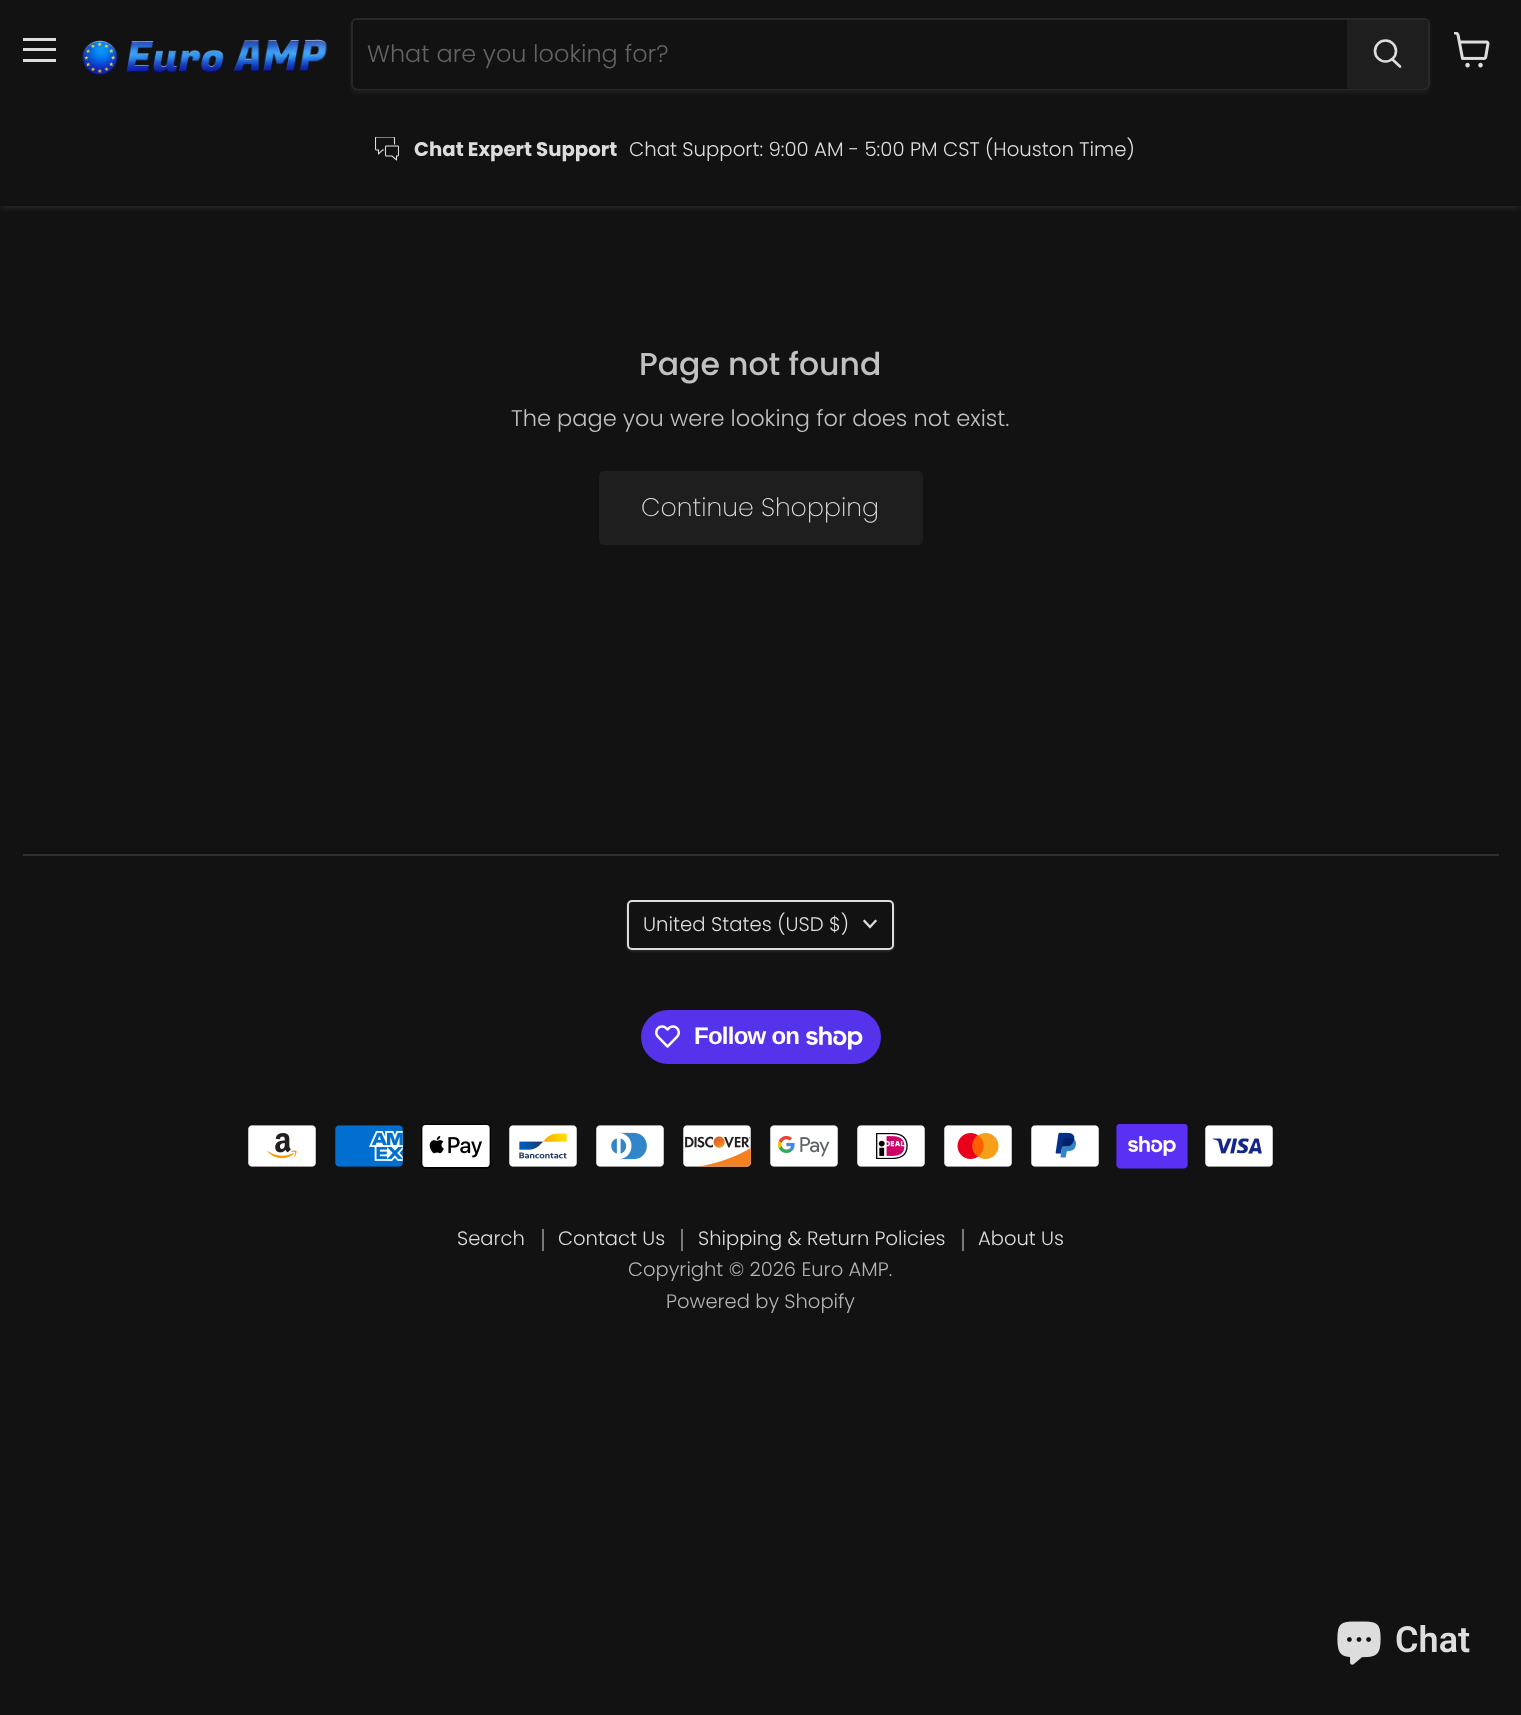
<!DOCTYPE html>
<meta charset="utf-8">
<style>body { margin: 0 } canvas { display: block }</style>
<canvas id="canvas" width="1521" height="1715"></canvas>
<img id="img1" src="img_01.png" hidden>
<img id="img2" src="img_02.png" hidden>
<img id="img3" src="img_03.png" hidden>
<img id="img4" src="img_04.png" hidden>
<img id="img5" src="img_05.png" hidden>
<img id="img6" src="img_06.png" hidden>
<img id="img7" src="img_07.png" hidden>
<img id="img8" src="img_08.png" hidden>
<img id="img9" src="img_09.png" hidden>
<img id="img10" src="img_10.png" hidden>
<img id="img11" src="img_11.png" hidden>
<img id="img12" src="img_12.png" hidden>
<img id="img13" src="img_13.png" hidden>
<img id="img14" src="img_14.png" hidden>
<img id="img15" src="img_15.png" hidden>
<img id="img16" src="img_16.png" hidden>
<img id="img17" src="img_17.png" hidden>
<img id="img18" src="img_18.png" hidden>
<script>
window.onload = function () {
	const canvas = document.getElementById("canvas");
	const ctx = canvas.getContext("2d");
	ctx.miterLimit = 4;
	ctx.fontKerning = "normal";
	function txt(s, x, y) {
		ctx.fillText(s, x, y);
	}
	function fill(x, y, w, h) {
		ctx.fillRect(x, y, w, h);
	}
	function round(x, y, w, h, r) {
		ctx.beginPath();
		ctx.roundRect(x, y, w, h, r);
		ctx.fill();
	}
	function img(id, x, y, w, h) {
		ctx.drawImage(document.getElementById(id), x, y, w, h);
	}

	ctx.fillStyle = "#121212";
	fill(0, 0, 1521, 1715);
	ctx.fillStyle = "rgba(137, 137, 137, 0.25)";
	ctx.filter = "blur(3px)";
	ctx.beginPath();
	ctx.rect(0, 2, 1521, 205);
	ctx.fill();
	ctx.filter = "none";
	ctx.fillStyle = "#121212";
	fill(0, 0, 1521, 206);
	ctx.fillStyle = "#DDDDDD";
	fill(23, 38, 33, 3);
	fill(23, 48, 33, 3);
	fill(23, 59, 33, 3);
	img("img1", 82, 39, 246, 37);
	ctx.save();
	ctx.beginPath();
	ctx.moveTo(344, 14);
	ctx.lineTo(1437, 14);
	ctx.lineTo(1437, 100);
	ctx.lineTo(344, 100);
	ctx.closePath();
	ctx.moveTo(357, 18);
	ctx.lineTo(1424, 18);
	ctx.bezierCurveTo(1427.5, 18, 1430, 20.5, 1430, 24);
	ctx.lineTo(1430, 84);
	ctx.bezierCurveTo(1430, 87.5, 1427.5, 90, 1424, 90);
	ctx.lineTo(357, 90);
	ctx.bezierCurveTo(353.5, 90, 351, 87.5, 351, 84);
	ctx.lineTo(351, 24);
	ctx.bezierCurveTo(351, 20.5, 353.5, 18, 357, 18);
	ctx.closePath();
	ctx.clip("evenodd");
	ctx.fillStyle = "rgba(137, 137, 137, 0.11)";
	ctx.filter = "blur(2px)";
	ctx.beginPath();
	ctx.roundRect(351, 21, 1079, 72, 6);
	ctx.fill();
	ctx.filter = "none";
	ctx.restore();
	ctx.beginPath();
	ctx.roundRect(352, 19, 1077, 70, 5);
	ctx.strokeStyle = "rgba(137, 137, 137, 0.2)";
	ctx.lineWidth = 2;
	ctx.stroke();
	ctx.fillStyle = "#121212";
	ctx.beginPath();
	ctx.roundRect(353, 20, 994, 69, [5, 0, 0, 5]);
	ctx.fill();
	ctx.fillStyle = "#1E1E1E";
	ctx.beginPath();
	ctx.roundRect(1347, 20, 81, 69, [0, 5, 5, 0]);
	ctx.fill();
	ctx.beginPath();
	ctx.moveTo(1400, 66.5);
	ctx.lineTo(1392.5, 59.5);
	ctx.strokeStyle = "#DDDDDD";
	ctx.lineWidth = 2.6;
	ctx.lineCap = "round";
	ctx.stroke();
	ctx.beginPath();
	ctx.arc(1385.5, 51, 10.5, 0, Math.PI * 2);
	ctx.stroke();
	img("img2", 375, 137, 24, 24);
	img("img3", 1454, 32, 36, 36);
	ctx.beginPath();
	ctx.roundRect(600, 472, 322, 72, 4);
	ctx.fill();
	ctx.strokeStyle = "#1E1E1E";
	ctx.lineWidth = 2;
	ctx.stroke();
	ctx.fillStyle = "#303030";
	fill(23, 854, 1476, 2);
	ctx.fillStyle = "rgba(255, 255, 255, 0.15)";
	ctx.filter = "blur(1.5px)";
	ctx.beginPath();
	ctx.roundRect(627, 902, 267, 49, 5);
	ctx.fill();
	ctx.filter = "none";
	ctx.fillStyle = "#121212";
	ctx.beginPath();
	ctx.roundRect(628, 901, 265, 48, 4);
	ctx.fill();
	ctx.strokeStyle = "#DDDDDD";
	ctx.stroke();
	ctx.beginPath();
	ctx.moveTo(870, 927);
	ctx.lineTo(875.5, 921);
	ctx.moveTo(870, 927);
	ctx.lineTo(864.5, 921);
	ctx.lineWidth = 2.3;
	ctx.lineCap = "square";
	ctx.stroke();
	ctx.fillStyle = "#5433EB";
	round(641, 1010, 240, 54, 27);
	img("img4", 655, 1025, 25, 23);
	img("img5", 806, 1026, 57, 24);
	img("img6", 248, 1125, 68, 42);
	img("img7", 335, 1125, 68, 42);
	img("img8", 421, 1124, 70, 45);
	img("img9", 509, 1125, 68, 42);
	img("img10", 596, 1125, 68, 42);
	img("img11", 683, 1125, 68, 42);
	img("img12", 770, 1125, 68, 42);
	img("img13", 857, 1125, 68, 42);
	img("img14", 944, 1125, 68, 42);
	img("img15", 1031, 1125, 68, 42);
	img("img16", 1116, 1124, 72, 45);
	img("img17", 1205, 1125, 68, 42);
	ctx.fillStyle = "#787878";
	fill(542, 1229, 2, 22);
	fill(681, 1229, 2, 22);
	fill(962, 1229, 2, 22);
	img("img18", 1337, 1621, 44, 44);
	ctx.font = "300 24px Poppins";
	ctx.fillStyle = "#636363";
	txt("What are you looking for?", 367, 62);
	ctx.font = "bold 19.7px Poppins";
	ctx.fillStyle = "#DDDDDD";
	txt("Chat Expert Support", 414, 156);
	ctx.font = "300 19.7px Poppins";
	txt("Chat Support: 9:00 AM - 5:00 PM CST (Houston Time)", 629, 156);
	ctx.font = "500 31.5px Poppins";
	ctx.fillStyle = "#C1C1C1";
	txt("Page not found", 639, 375);
	ctx.font = "300 22.5px Poppins";
	txt("The page you were looking for does not exist.", 511, 426);
	ctx.font = "300 25.25px 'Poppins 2'";
	ctx.fillStyle = "#DDDDDD";
	txt("Continue Shopping", 641, 516);
	ctx.font = "300 19.7px Poppins";
	txt("United States (USD $)", 643, 931);
	ctx.letterSpacing = "-0.75px";
	ctx.font = "bold 24px Liberation Sans";
	ctx.fillStyle = "#FFFFFF";
	txt("Follow on", 694, 1044);
	ctx.letterSpacing = "0px";
	ctx.font = "300 19.5px Poppins";
	ctx.fillStyle = "#DDDDDD";
	txt("Search", 457, 1245);
	txt("Contact Us", 558, 1245);
	txt("Shipping & Return Policies", 698, 1245);
	txt("About Us", 978, 1245);
	ctx.fillStyle = "#B4B4B4";
	txt("Copyright © 2026 Euro AMP.", 628, 1276);
	txt("Powered by Shopify", 666, 1308);
	ctx.font = "600 36px Roboto";
	ctx.fillStyle = "#DDDDDD";
	txt("Chat", 1395, 1652);
};
</script>
